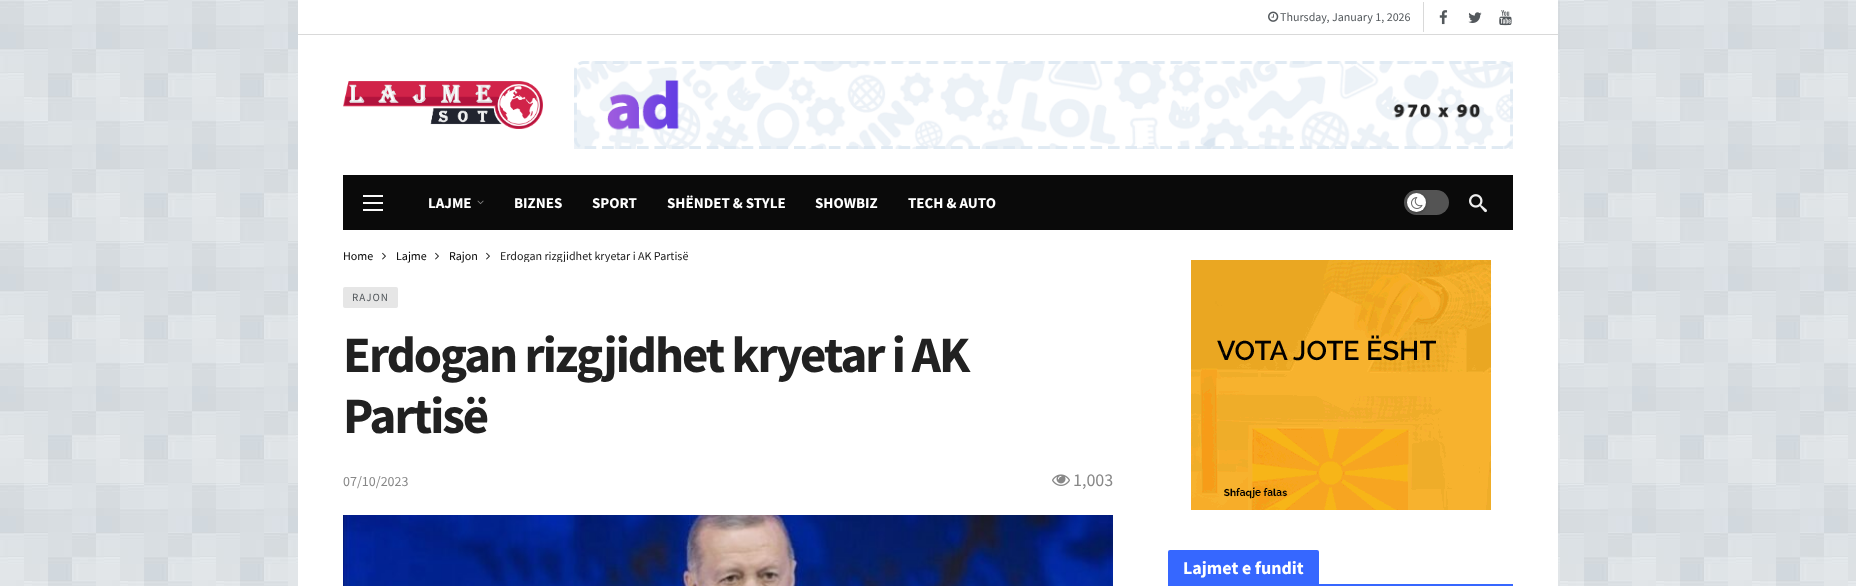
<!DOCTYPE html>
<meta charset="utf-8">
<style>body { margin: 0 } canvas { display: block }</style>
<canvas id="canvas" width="1856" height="586"></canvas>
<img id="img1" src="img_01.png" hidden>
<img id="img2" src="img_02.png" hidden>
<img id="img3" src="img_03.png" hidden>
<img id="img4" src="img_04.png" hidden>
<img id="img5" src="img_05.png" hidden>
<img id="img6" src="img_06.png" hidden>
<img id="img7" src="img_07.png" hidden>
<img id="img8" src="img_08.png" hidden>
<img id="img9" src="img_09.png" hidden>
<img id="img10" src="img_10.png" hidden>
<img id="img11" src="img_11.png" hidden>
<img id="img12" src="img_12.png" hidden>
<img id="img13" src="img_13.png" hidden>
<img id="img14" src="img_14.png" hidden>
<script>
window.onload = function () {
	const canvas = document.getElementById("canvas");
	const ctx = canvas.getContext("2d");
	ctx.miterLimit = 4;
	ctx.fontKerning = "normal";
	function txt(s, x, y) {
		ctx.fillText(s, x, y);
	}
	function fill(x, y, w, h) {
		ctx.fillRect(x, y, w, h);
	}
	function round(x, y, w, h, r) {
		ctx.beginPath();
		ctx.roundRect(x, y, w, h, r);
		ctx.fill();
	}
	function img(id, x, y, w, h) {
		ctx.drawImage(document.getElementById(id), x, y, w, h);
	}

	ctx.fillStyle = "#FFFFFF";
	fill(0, 0, 1856, 586);
	img("img1", 0, 0, 1856, 586);
	fill(298, 0, 1260, 586);
	ctx.fillStyle = "#D9D9D9";
	fill(298, 34, 1260, 1);
	img("img2", 1268, 11, 11, 11);
	fill(1423, 2, 1, 30);
	img("img3", 1439, 10, 9, 15);
	img("img4", 1468, 12, 14, 11);
	img("img5", 1499, 10, 13, 16);
	img("img6", 343, 81, 200, 48);
	img("img7", 574, 61, 939, 88);
	ctx.fillStyle = "#0A0A0A";
	fill(343, 175, 1170, 55);
	ctx.fillStyle = "#FAFAFA";
	fill(363, 195, 20, 2);
	fill(363, 202, 20, 2);
	fill(363, 209, 20, 2);
	img("img8", 477, 200, 7, 5);
	ctx.fillStyle = "#545454";
	round(1404, 190, 45, 25, 12.5);
	ctx.fillStyle = "rgba(0, 0, 0, 0.3)";
	ctx.filter = "blur(1.5px)";
	ctx.beginPath();
	ctx.roundRect(1407, 194, 19, 19, 9.5);
	ctx.fill();
	ctx.filter = "none";
	ctx.fillStyle = "#FFFFFF";
	ctx.beginPath();
	ctx.arc(1416.5, 202.5, 9.5, 0, Math.PI * 2);
	ctx.fill();
	img("img9", 1411, 197, 12, 12);
	img("img10", 1469, 194, 18, 19);
	img("img11", 382, 252, 4, 8);
	img("img11", 435, 252, 4, 8);
	img("img11", 486, 252, 4, 8);
	ctx.fillStyle = "#E6E6E6";
	round(343, 287, 55, 21, 2);
	img("img12", 1052, 474, 18, 12);
	img("img13", 343, 515, 770, 71);
	img("img14", 1191, 260, 300, 250);
	ctx.fillStyle = "#3667FF";
	ctx.beginPath();
	ctx.roundRect(1168, 550, 151, 36, [2, 2, 0, 0]);
	ctx.fill();
	fill(1319, 584, 194, 2);
	ctx.font = "12px Source Sans Pro";
	ctx.fillStyle = "#53585C";
	txt("Thursday, January 1, 2026", 1280, 21);
	ctx.font = "bold 15px Source Sans Pro";
	ctx.fillStyle = "#FFFFFF";
	txt("LAJME", 428, 208);
	txt("BIZNES", 514, 208);
	txt("SPORT", 592, 208);
	txt("SHËNDET & STYLE", 667, 208);
	txt("SHOWBIZ", 815, 208);
	txt("TECH & AUTO", 908, 208);
	ctx.font = "12px Source Sans Pro";
	ctx.fillStyle = "#000000";
	txt("Home", 343, 260);
	txt("Lajme", 396, 260);
	txt("Rajon", 449, 260);
	ctx.save();
	ctx.beginPath();
	ctx.rect(343, 250, 770, 12);
	ctx.clip();
	ctx.fillStyle = "#1A1A1A";
	txt("Erdogan rizgjidhet kryetar i AK Partisë", 500, 260);
	ctx.restore();
	ctx.letterSpacing = "1px";
	ctx.font = "11px Source Sans Pro";
	ctx.fillStyle = "#53585C";
	txt("RAJON", 352, 301);
	ctx.letterSpacing = "-2.05px";
	ctx.font = "bold 51px Source Sans Pro";
	ctx.fillStyle = "#212121";
	txt("Erdogan rizgjidhet kryetar i AK", 343, 372);
	txt("Partisë", 343, 433);
	ctx.letterSpacing = "0px";
	ctx.font = "14px Source Sans Pro";
	ctx.fillStyle = "#888888";
	txt("07/10/2023", 343, 486);
	ctx.font = "18px Source Sans Pro";
	txt("1,003", 1073, 486);
	ctx.font = "bold 18px Source Sans Pro";
	ctx.fillStyle = "#FFFFFF";
	txt("Lajmet e fundit", 1183, 574);
};
</script>
